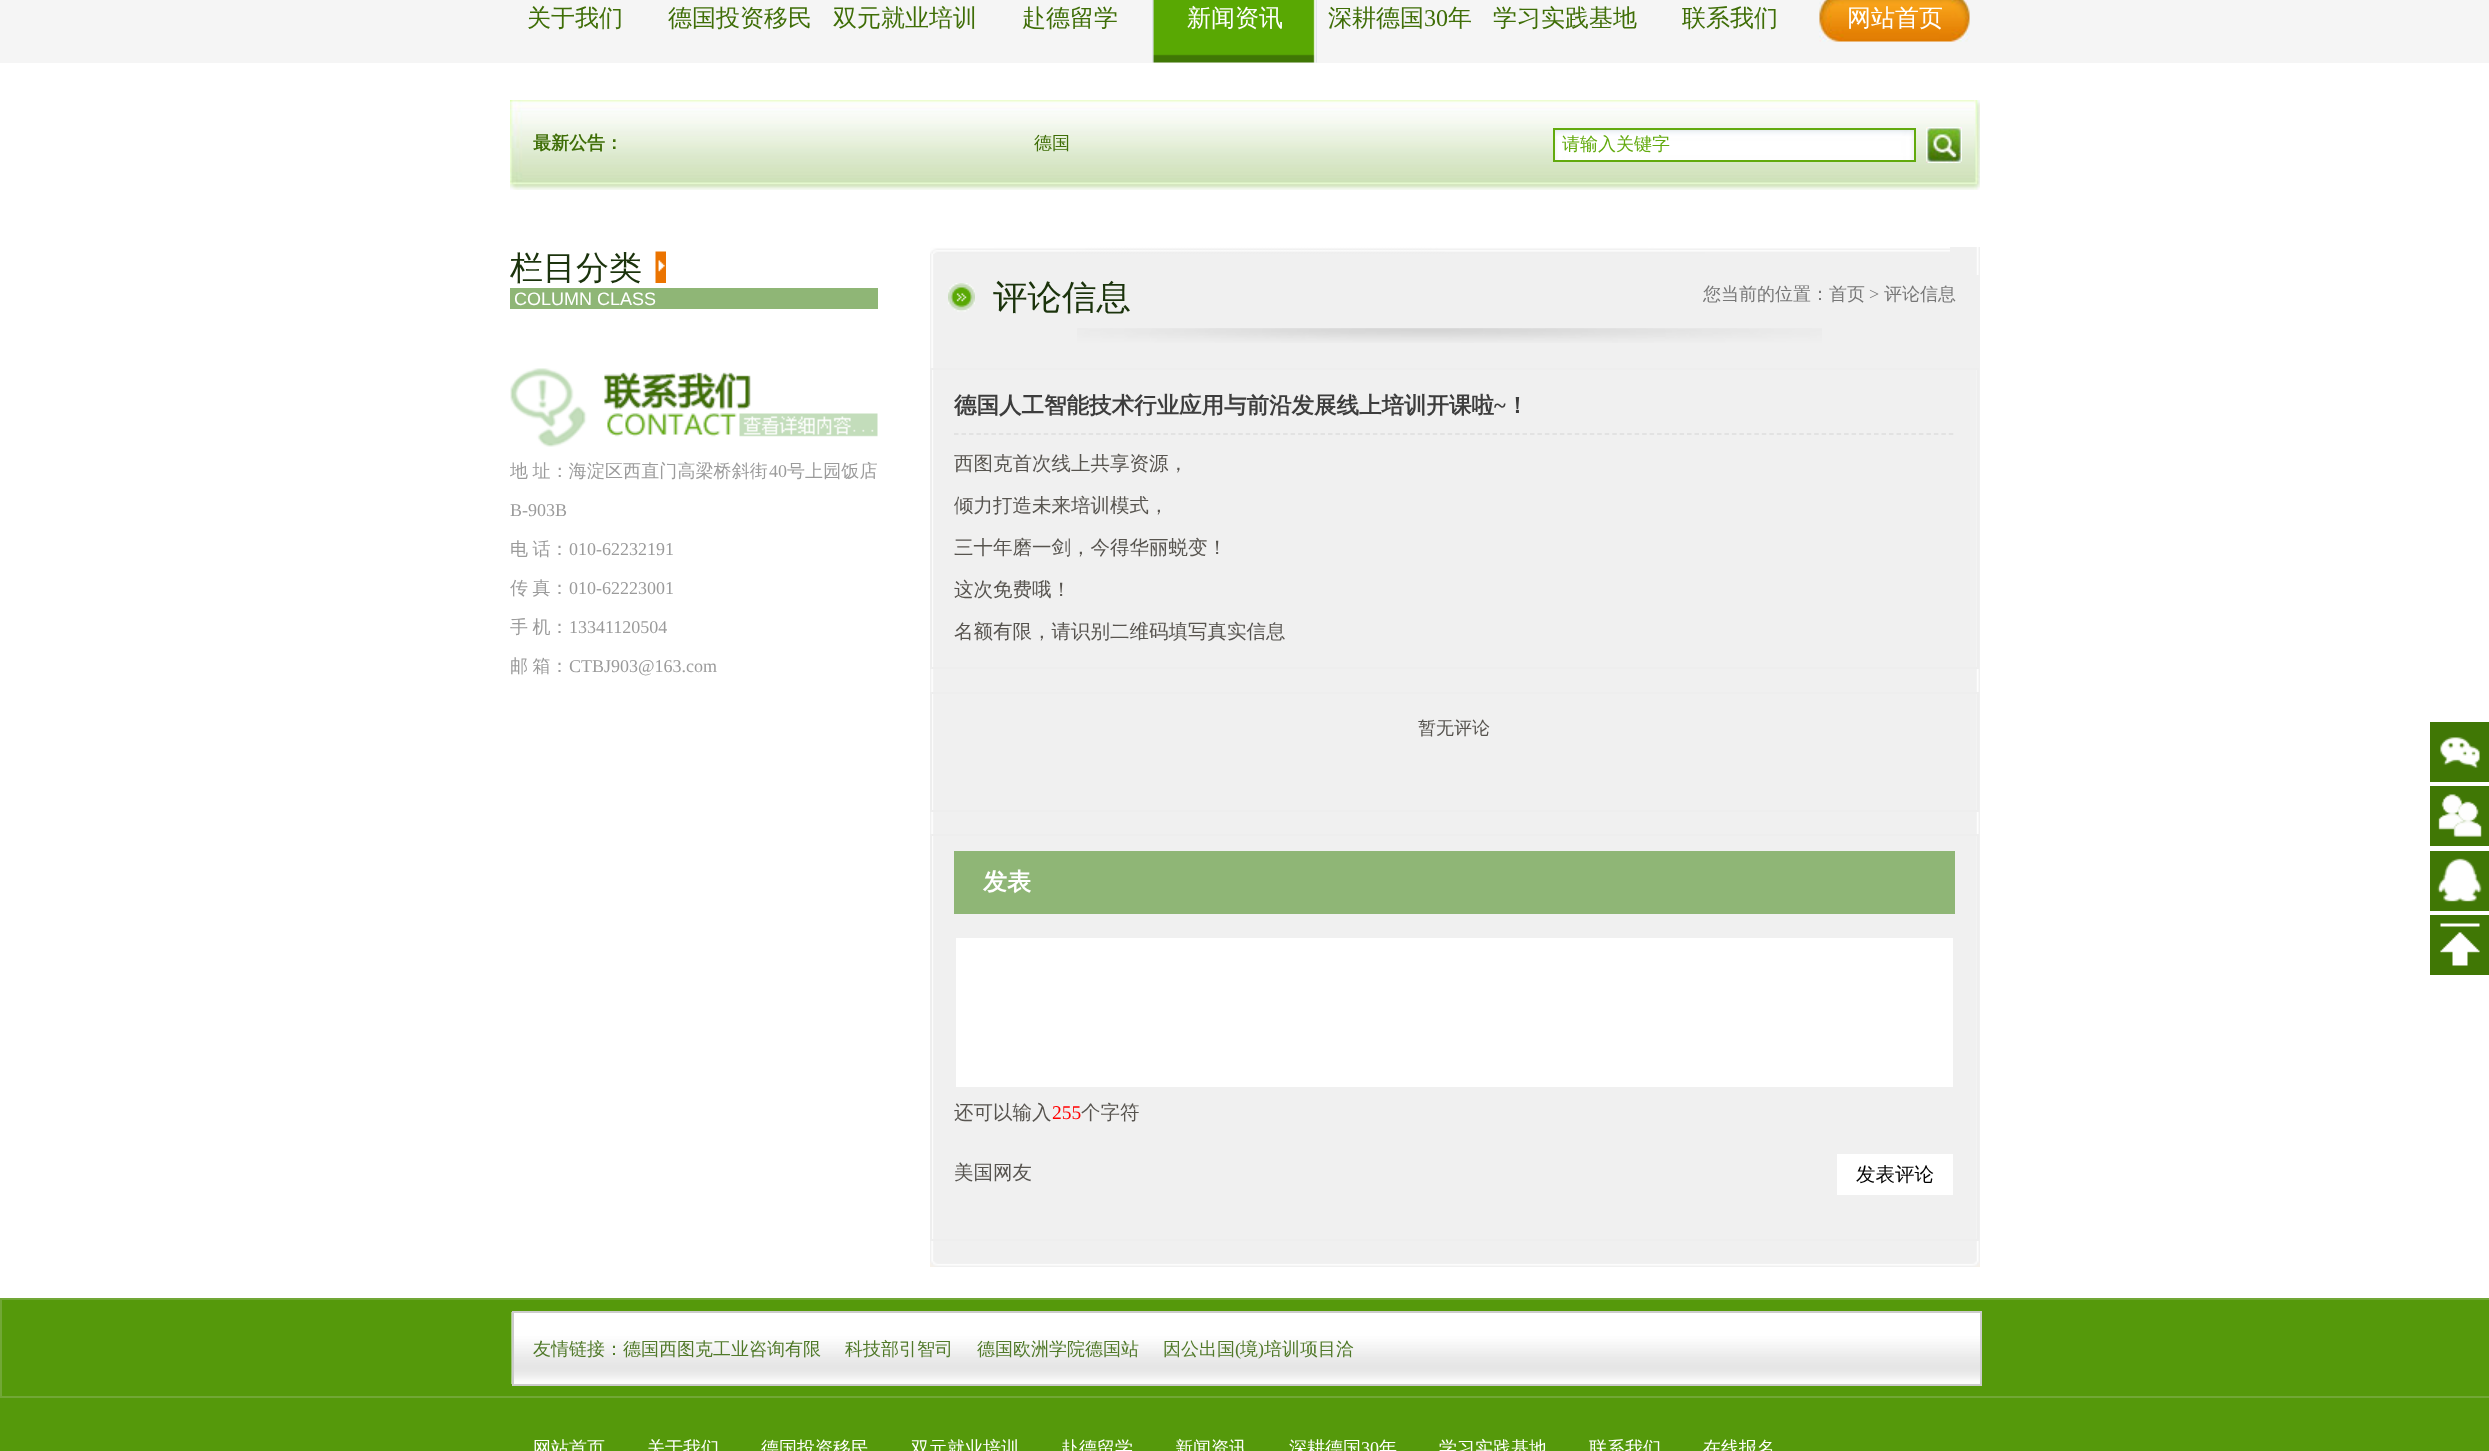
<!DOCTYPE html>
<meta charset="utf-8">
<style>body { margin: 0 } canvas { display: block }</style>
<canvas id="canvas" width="2489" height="1451"></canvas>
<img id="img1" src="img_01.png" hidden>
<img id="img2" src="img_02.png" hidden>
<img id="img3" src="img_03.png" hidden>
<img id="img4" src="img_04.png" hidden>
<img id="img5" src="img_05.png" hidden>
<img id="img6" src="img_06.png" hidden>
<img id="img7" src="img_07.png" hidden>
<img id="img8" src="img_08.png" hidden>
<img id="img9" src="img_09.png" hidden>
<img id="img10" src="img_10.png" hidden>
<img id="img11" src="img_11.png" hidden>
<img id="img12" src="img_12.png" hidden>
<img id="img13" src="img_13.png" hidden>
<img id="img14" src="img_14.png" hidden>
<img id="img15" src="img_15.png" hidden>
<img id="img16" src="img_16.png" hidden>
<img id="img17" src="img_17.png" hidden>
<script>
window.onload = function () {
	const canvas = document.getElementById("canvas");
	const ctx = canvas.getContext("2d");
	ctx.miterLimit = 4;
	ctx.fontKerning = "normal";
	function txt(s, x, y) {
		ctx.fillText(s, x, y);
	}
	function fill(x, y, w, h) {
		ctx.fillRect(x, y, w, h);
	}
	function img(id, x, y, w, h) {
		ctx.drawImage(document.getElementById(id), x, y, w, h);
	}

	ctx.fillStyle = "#FFFFFF";
	fill(0, 0, 2489, 1451);
	ctx.fillStyle = "#F5F5F5";
	fill(0, 0, 2489, 63);
	img("img1", 1152, 0, 165, 63);
	img("img2", 1819, 0, 151, 42);
	img("img3", 510, 100, 1470, 90);
	img("img4", 1555, 130, 359, 30);
	ctx.strokeStyle = "#62AA0D";
	ctx.lineWidth = 2;
	ctx.strokeRect(1554, 129, 361, 32);
	img("img5", 1926, 127, 36, 36);
	img("img6", 655, 251, 11, 32);
	ctx.fillStyle = "#8FB676";
	fill(510, 288, 368, 21);
	img("img7", 510, 368, 368, 79);
	img("img8", 930, 247, 1050, 1014);
	img("img9", 930, 247, 1020, 7);
	ctx.fillStyle = "#F0F0F0";
	fill(1976, 275, 3, 93);
	img("img10", 1077, 328, 745, 15);
	img("img11", 948, 283, 27, 29);
	ctx.strokeStyle = "#EEEEEE";
	ctx.strokeRect(931, 369, 1047, 299);
	ctx.beginPath();
	ctx.moveTo(954, 434);
	ctx.lineTo(1954.5, 434);
	ctx.strokeStyle = "#DDDDDD";
	ctx.lineWidth = 1.5;
	ctx.setLineDash([4.5, 2.98]);
	ctx.stroke();
	ctx.strokeStyle = "#EEEEEE";
	ctx.lineWidth = 2;
	ctx.setLineDash([]);
	ctx.strokeRect(931, 693, 1047, 118);
	ctx.strokeRect(931, 835, 1047, 405);
	ctx.fillStyle = "#8FB676";
	fill(954, 851, 1001, 63);
	ctx.fillStyle = "#FFFFFF";
	fill(956, 938, 997, 149);
	fill(1837, 1154, 116, 41);
	img("img12", 930, 1261, 1050, 6);
	ctx.fillStyle = "#407705";
	fill(2430, 722, 59, 60);
	img("img13", 2440, 737, 40, 31);
	fill(2430, 786, 59, 60);
	img("img14", 2438, 794, 44, 43);
	fill(2430, 851, 59, 60);
	img("img15", 2437, 858, 45, 44);
	fill(2430, 915, 59, 60);
	img("img16", 2440, 923, 40, 43);
	ctx.fillStyle = "#55990B";
	fill(0, 1300, 2489, 151);
	ctx.strokeStyle = "#71A736";
	ctx.strokeRect(1, 1299, 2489, 98);
	img("img17", 511, 1312, 1469, 72);
	ctx.strokeStyle = "#CCCCCC";
	ctx.strokeRect(513, 1312, 1468, 73);
	ctx.font = "500 24px WenQuanYi Zen Hei";
	ctx.fillStyle = "#3F6E07";
	txt("关于我们", 527, 26);
	txt("德国投资移民", 668, 26);
	txt("双元就业培训", 833, 26);
	txt("赴德留学", 1022, 26);
	ctx.fillStyle = "#FFFFFF";
	txt("新闻资讯", 1187, 26);
	ctx.fillStyle = "#3F6E07";
	txt("深耕德国", 1328, 26);
	ctx.font = "24px Liberation Serif";
	txt("30", 1424, 26);
	ctx.font = "500 24px WenQuanYi Zen Hei";
	txt("年", 1448, 26);
	txt("学习实践基地", 1493, 26);
	txt("联系我们", 1682, 26);
	ctx.fillStyle = "#FFFFFF";
	txt("网站首页", 1847, 26);
	ctx.font = "bold 18px WenQuanYi Zen Hei";
	ctx.fillStyle = "#3F6E07";
	txt("最新公告：", 533, 149);
	ctx.font = "500 18px WenQuanYi Zen Hei";
	txt("德国", 1034, 149);
	ctx.fillStyle = "#62AA0D";
	txt("请输入关键字", 1562, 150);
	ctx.font = "500 33px WenQuanYi Zen Hei";
	ctx.fillStyle = "#1B330C";
	txt("栏目分类", 510, 279);
	ctx.font = "18px Liberation Sans";
	ctx.fillStyle = "#FFFFFF";
	txt("COLUMN CLASS", 514, 305);
	ctx.letterSpacing = "0.1px";
	ctx.wordSpacing = "-1px";
	ctx.font = "500 18px WenQuanYi Zen Hei";
	ctx.fillStyle = "#9B9B9B";
	txt("地 址：海淀区西直门高梁桥斜街", 510, 477);
	ctx.wordSpacing = "0px";
	ctx.font = "18px Liberation Serif";
	txt("40", 769, 477);
	ctx.font = "500 18px WenQuanYi Zen Hei";
	txt("号上园饭店", 787, 477);
	ctx.letterSpacing = "0px";
	ctx.font = "18px Liberation Serif";
	txt("B-903B", 510, 516);
	ctx.wordSpacing = "-1px";
	ctx.font = "500 18px WenQuanYi Zen Hei";
	txt("电 话：", 510, 555);
	ctx.wordSpacing = "0px";
	ctx.font = "18px Liberation Serif";
	txt("010-62232191", 569, 555);
	ctx.wordSpacing = "-1px";
	ctx.font = "500 18px WenQuanYi Zen Hei";
	txt("传 真：", 510, 594);
	ctx.wordSpacing = "0px";
	ctx.font = "18px Liberation Serif";
	txt("010-62223001", 569, 594);
	ctx.wordSpacing = "-1px";
	ctx.font = "500 18px WenQuanYi Zen Hei";
	txt("手 机：", 510, 633);
	ctx.wordSpacing = "0px";
	ctx.font = "18px Liberation Serif";
	txt("13341120504", 569, 633);
	ctx.wordSpacing = "-1px";
	ctx.font = "500 18px WenQuanYi Zen Hei";
	txt("邮 箱：", 510, 672);
	ctx.wordSpacing = "0px";
	ctx.font = "18px Liberation Serif";
	txt("CTBJ903@163.com", 569, 672);
	ctx.font = "500 34.5px WenQuanYi Zen Hei";
	ctx.fillStyle = "#1B330C";
	txt("评论信息", 993, 309);
	ctx.font = "500 18px WenQuanYi Zen Hei";
	ctx.fillStyle = "#777777";
	txt("您当前的位置：首页", 1703, 300);
	ctx.font = "18px Liberation Serif";
	txt(">", 1869, 300);
	ctx.font = "500 18px WenQuanYi Zen Hei";
	txt("评论信息", 1884, 300);
	ctx.font = "bold 22.5px WenQuanYi Zen Hei";
	ctx.fillStyle = "#3D3D3D";
	txt("德国人工智能技术行业应用与前沿发展线上培训开课啦", 954, 413);
	ctx.font = "bold 22.5px Liberation Serif";
	txt("~", 1494, 413);
	ctx.font = "bold 22.5px WenQuanYi Zen Hei";
	txt("！", 1506, 413);
	ctx.font = "500 19.5px WenQuanYi Zen Hei";
	ctx.fillStyle = "#57544F";
	txt("西图克首次线上共享资源，", 954, 470);
	txt("倾力打造未来培训模式，", 954, 512);
	txt("三十年磨一剑，今得华丽蜕变！", 954, 554);
	txt("这次免费哦！", 954, 596);
	txt("名额有限，请识别二维码填写真实信息", 954, 638);
	ctx.font = "500 18px WenQuanYi Zen Hei";
	txt("暂无评论", 1418, 734);
	ctx.font = "bold 24px WenQuanYi Zen Hei";
	ctx.fillStyle = "#FFFFFF";
	txt("发表", 983, 890);
	ctx.font = "500 19.5px WenQuanYi Zen Hei";
	ctx.fillStyle = "#57544F";
	txt("还可以输入", 954, 1119);
	ctx.font = "19.5px Liberation Serif";
	ctx.fillStyle = "#FF0000";
	txt("255", 1052, 1119);
	ctx.font = "500 19.5px WenQuanYi Zen Hei";
	ctx.fillStyle = "#57544F";
	txt("个字符", 1081, 1119);
	txt("美国网友", 954, 1179);
	ctx.fillStyle = "#000000";
	txt("发表评论", 1856, 1181);
	ctx.font = "500 18px WenQuanYi Zen Hei";
	ctx.fillStyle = "#507929";
	txt("友情链接：德国西图克工业咨询有限", 533, 1355);
	txt("科技部引智司", 845, 1355);
	txt("德国欧洲学院德国站", 977, 1355);
	txt("因公出国", 1163, 1355);
	ctx.font = "18px Liberation Serif";
	txt("(", 1235, 1355);
	ctx.font = "500 18px WenQuanYi Zen Hei";
	txt("境", 1240, 1355);
	ctx.font = "18px Liberation Serif";
	txt(")", 1258, 1355);
	ctx.font = "500 18px WenQuanYi Zen Hei";
	txt("培训项目洽", 1264, 1355);
	ctx.fillStyle = "#FFFFFF";
	txt("网站首页", 533, 1454);
	txt("关于我们", 647, 1454);
	txt("德国投资移民", 761, 1454);
	txt("双元就业培训", 911, 1454);
	txt("赴德留学", 1061, 1454);
	txt("新闻资讯", 1175, 1454);
	txt("深耕德国", 1289, 1454);
	ctx.font = "18px Liberation Serif";
	txt("30", 1361, 1454);
	ctx.font = "500 18px WenQuanYi Zen Hei";
	txt("年", 1379, 1454);
	txt("学习实践基地", 1439, 1454);
	txt("联系我们", 1589, 1454);
	txt("在线报名", 1703, 1454);
};
</script>
